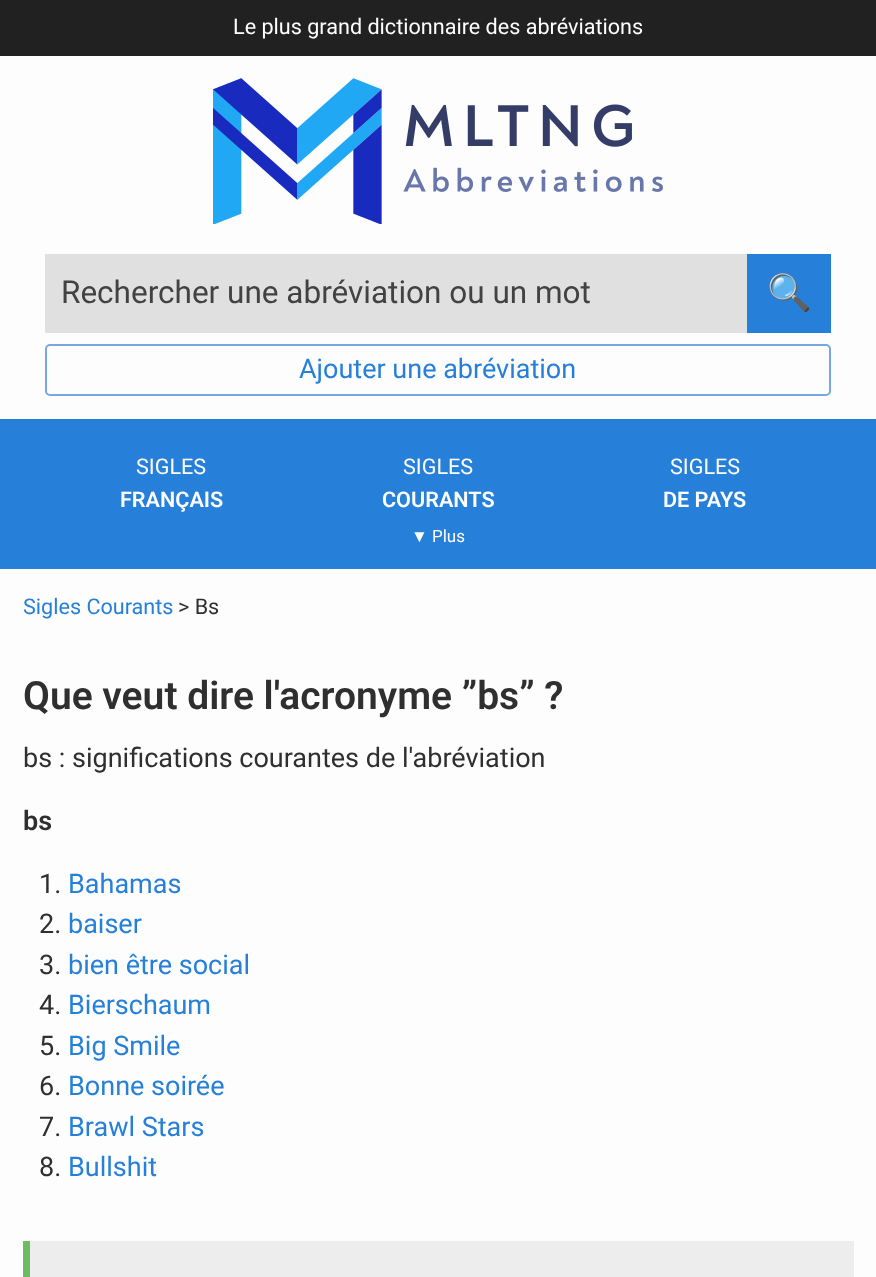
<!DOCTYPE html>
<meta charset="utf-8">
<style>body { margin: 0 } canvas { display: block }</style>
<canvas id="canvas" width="876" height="1277"></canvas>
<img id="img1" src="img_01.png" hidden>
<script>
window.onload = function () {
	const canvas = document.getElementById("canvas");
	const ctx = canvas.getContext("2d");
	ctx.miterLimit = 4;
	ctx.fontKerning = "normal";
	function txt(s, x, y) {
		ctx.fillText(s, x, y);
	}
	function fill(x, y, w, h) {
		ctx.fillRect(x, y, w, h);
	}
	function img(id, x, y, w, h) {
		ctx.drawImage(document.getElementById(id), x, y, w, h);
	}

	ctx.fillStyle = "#FDFDFD";
	fill(0, 0, 876, 1277);
	ctx.fillStyle = "#212121";
	fill(0, 0, 876, 56);
	img("img1", 213, 78, 450, 146);
	ctx.fillStyle = "#E0E0E0";
	fill(45, 254, 702, 79);
	ctx.fillStyle = "#2680D9";
	fill(747, 254, 84, 79);
	ctx.beginPath();
	ctx.roundRect(46, 345, 784, 50, 4);
	ctx.strokeStyle = "#77A8E3";
	ctx.lineWidth = 2;
	ctx.stroke();
	fill(0, 419, 876, 150);
	ctx.fillStyle = "#EDEDED";
	fill(30, 1241, 824, 36);
	ctx.fillStyle = "#6DBB63";
	fill(23, 1241, 7, 36);
	ctx.font = "21.6px Roboto";
	ctx.fillStyle = "#FDFDFD";
	txt("Le plus grand dictionnaire des abréviations", 233, 34);
	ctx.font = "31.5px Roboto";
	ctx.fillStyle = "#424242";
	txt("Rechercher une abréviation ou un mot", 61, 303);
	ctx.font = "36px Noto Color Emoji";
	ctx.fillStyle = "#FDFDFD";
	txt("🔍", 767, 305);
	ctx.font = "27px Roboto";
	ctx.fillStyle = "#2680D9";
	txt("Ajouter une abréviation", 299, 378);
	ctx.font = "21.6px Roboto";
	ctx.fillStyle = "#FDFDFD";
	txt("SIGLES", 136, 474);
	ctx.font = "600 21.6px Roboto";
	txt("FRANÇAIS", 120, 507);
	ctx.font = "21.6px Roboto";
	txt("SIGLES", 403, 474);
	ctx.font = "600 21.6px Roboto";
	txt("COURANTS", 382, 507);
	ctx.font = "21.6px Roboto";
	txt("SIGLES", 670, 474);
	ctx.font = "600 21.6px Roboto";
	txt("DE PAYS", 663, 507);
	ctx.font = "17px Liberation Sans";
	txt("▼", 411, 542);
	ctx.font = "17px Roboto";
	txt("Plus", 432, 542);
	ctx.font = "21.6px Roboto";
	ctx.fillStyle = "#2680D9";
	txt("Sigles Courants", 23, 614);
	ctx.fillStyle = "#2F2F2F";
	txt("> Bs", 178, 614);
	ctx.font = "600 39px Roboto";
	txt("Que veut dire l'acronyme ”bs” ?", 23, 709);
	ctx.font = "27px Roboto";
	txt("bs : significations courantes de l'abréviation", 23, 767);
	ctx.font = "600 27px Roboto";
	txt("bs", 23, 830);
	ctx.font = "27px Roboto";
	txt("1.", 39, 893);
	ctx.fillStyle = "#2680D9";
	txt("Bahamas", 68, 893);
	ctx.fillStyle = "#2F2F2F";
	txt("2.", 39, 933);
	ctx.fillStyle = "#2680D9";
	txt("baiser", 68, 933);
	ctx.fillStyle = "#2F2F2F";
	txt("3.", 39, 974);
	ctx.fillStyle = "#2680D9";
	txt("bien être social", 68, 974);
	ctx.fillStyle = "#2F2F2F";
	txt("4.", 39, 1014);
	ctx.fillStyle = "#2680D9";
	txt("Bierschaum", 68, 1014);
	ctx.fillStyle = "#2F2F2F";
	txt("5.", 39, 1055);
	ctx.fillStyle = "#2680D9";
	txt("Big Smile", 68, 1055);
	ctx.fillStyle = "#2F2F2F";
	txt("6.", 39, 1095);
	ctx.fillStyle = "#2680D9";
	txt("Bonne soirée", 68, 1095);
	ctx.fillStyle = "#2F2F2F";
	txt("7.", 39, 1136);
	ctx.fillStyle = "#2680D9";
	txt("Brawl Stars", 68, 1136);
	ctx.fillStyle = "#2F2F2F";
	txt("8.", 39, 1176);
	ctx.fillStyle = "#2680D9";
	txt("Bullshit", 68, 1176);
};
</script>
